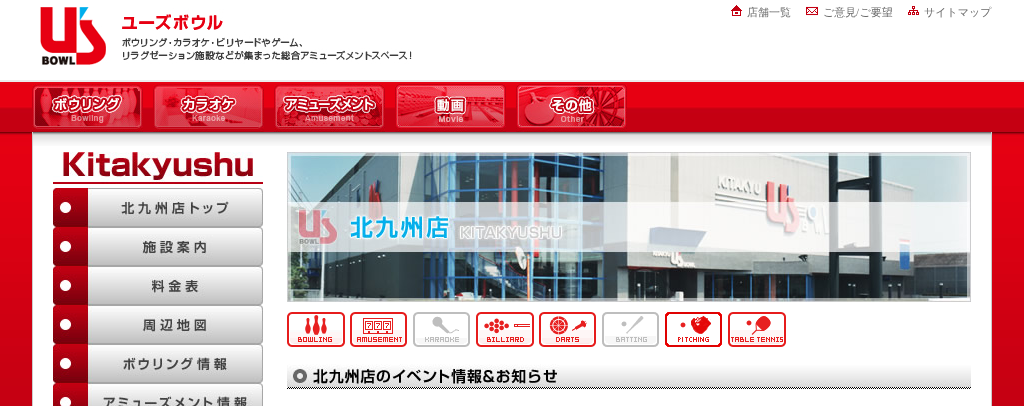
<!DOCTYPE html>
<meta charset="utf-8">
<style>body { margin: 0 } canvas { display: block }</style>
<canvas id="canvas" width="1024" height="406"></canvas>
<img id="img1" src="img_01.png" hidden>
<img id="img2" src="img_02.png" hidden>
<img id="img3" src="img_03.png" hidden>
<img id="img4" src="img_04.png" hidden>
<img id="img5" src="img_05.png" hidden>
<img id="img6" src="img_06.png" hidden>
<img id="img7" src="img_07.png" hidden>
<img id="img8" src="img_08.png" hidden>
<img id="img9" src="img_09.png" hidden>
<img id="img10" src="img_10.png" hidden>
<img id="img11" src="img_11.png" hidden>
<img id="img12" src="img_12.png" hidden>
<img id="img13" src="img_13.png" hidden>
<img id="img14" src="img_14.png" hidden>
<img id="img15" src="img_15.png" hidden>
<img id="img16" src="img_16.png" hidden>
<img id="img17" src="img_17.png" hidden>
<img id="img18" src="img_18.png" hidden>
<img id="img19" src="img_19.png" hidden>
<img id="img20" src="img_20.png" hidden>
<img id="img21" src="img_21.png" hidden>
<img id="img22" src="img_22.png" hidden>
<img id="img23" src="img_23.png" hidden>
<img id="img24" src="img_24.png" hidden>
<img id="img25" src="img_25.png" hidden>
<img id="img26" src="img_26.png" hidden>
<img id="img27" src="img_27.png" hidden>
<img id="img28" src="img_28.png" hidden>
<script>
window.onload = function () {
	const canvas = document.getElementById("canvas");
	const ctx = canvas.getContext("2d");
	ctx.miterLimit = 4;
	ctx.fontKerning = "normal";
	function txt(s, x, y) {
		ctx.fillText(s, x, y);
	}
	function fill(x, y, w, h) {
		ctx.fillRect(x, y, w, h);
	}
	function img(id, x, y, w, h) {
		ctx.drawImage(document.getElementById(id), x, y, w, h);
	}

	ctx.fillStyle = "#FFFFFF";
	fill(0, 0, 1024, 406);
	img("img1", 0, 80, 1024, 326);
	img("img2", 40, 7, 372, 58);
	img("img3", 731, 5, 11, 11);
	img("img4", 806, 6, 12, 10);
	img("img5", 908, 6, 11, 9);
	img("img6", 32, 84, 111, 48);
	img("img7", 153, 84, 111, 48);
	img("img8", 274, 84, 111, 48);
	img("img9", 395, 84, 111, 48);
	img("img10", 516, 84, 111, 48);
	fill(33, 146, 958, 260);
	img("img11", 33, 132, 958, 14);
	ctx.fillStyle = "#CCCCCC";
	fill(991, 132, 1, 274);
	fill(32, 132, 1, 274);
	img("img12", 53, 152, 210, 32);
	img("img13", 53, 188, 210, 39);
	img("img14", 53, 227, 210, 39);
	img("img15", 53, 266, 210, 39);
	img("img16", 53, 305, 210, 39);
	img("img17", 53, 344, 210, 39);
	img("img18", 53, 383, 210, 23);
	img("img19", 287, 152, 684, 150);
	img("img20", 287, 312, 58, 35);
	img("img21", 350, 312, 57, 35);
	img("img22", 413, 312, 57, 35);
	img("img23", 476, 312, 58, 35);
	img("img24", 539, 312, 57, 35);
	img("img25", 602, 312, 57, 35);
	img("img26", 665, 312, 57, 35);
	img("img27", 728, 312, 58, 35);
	img("img28", 287, 364, 684, 25);
	ctx.font = "500 11px WenQuanYi Zen Hei";
	ctx.fillStyle = "#6A6A6A";
	txt("店舗一覧", 747, 16);
	txt("ご意見 ご要望", 823, 16);
	ctx.font = "11px Liberation Serif";
	txt("/", 856, 16);
	ctx.font = "500 11px WenQuanYi Zen Hei";
	txt("サイトマップ", 924, 16);
};
</script>
